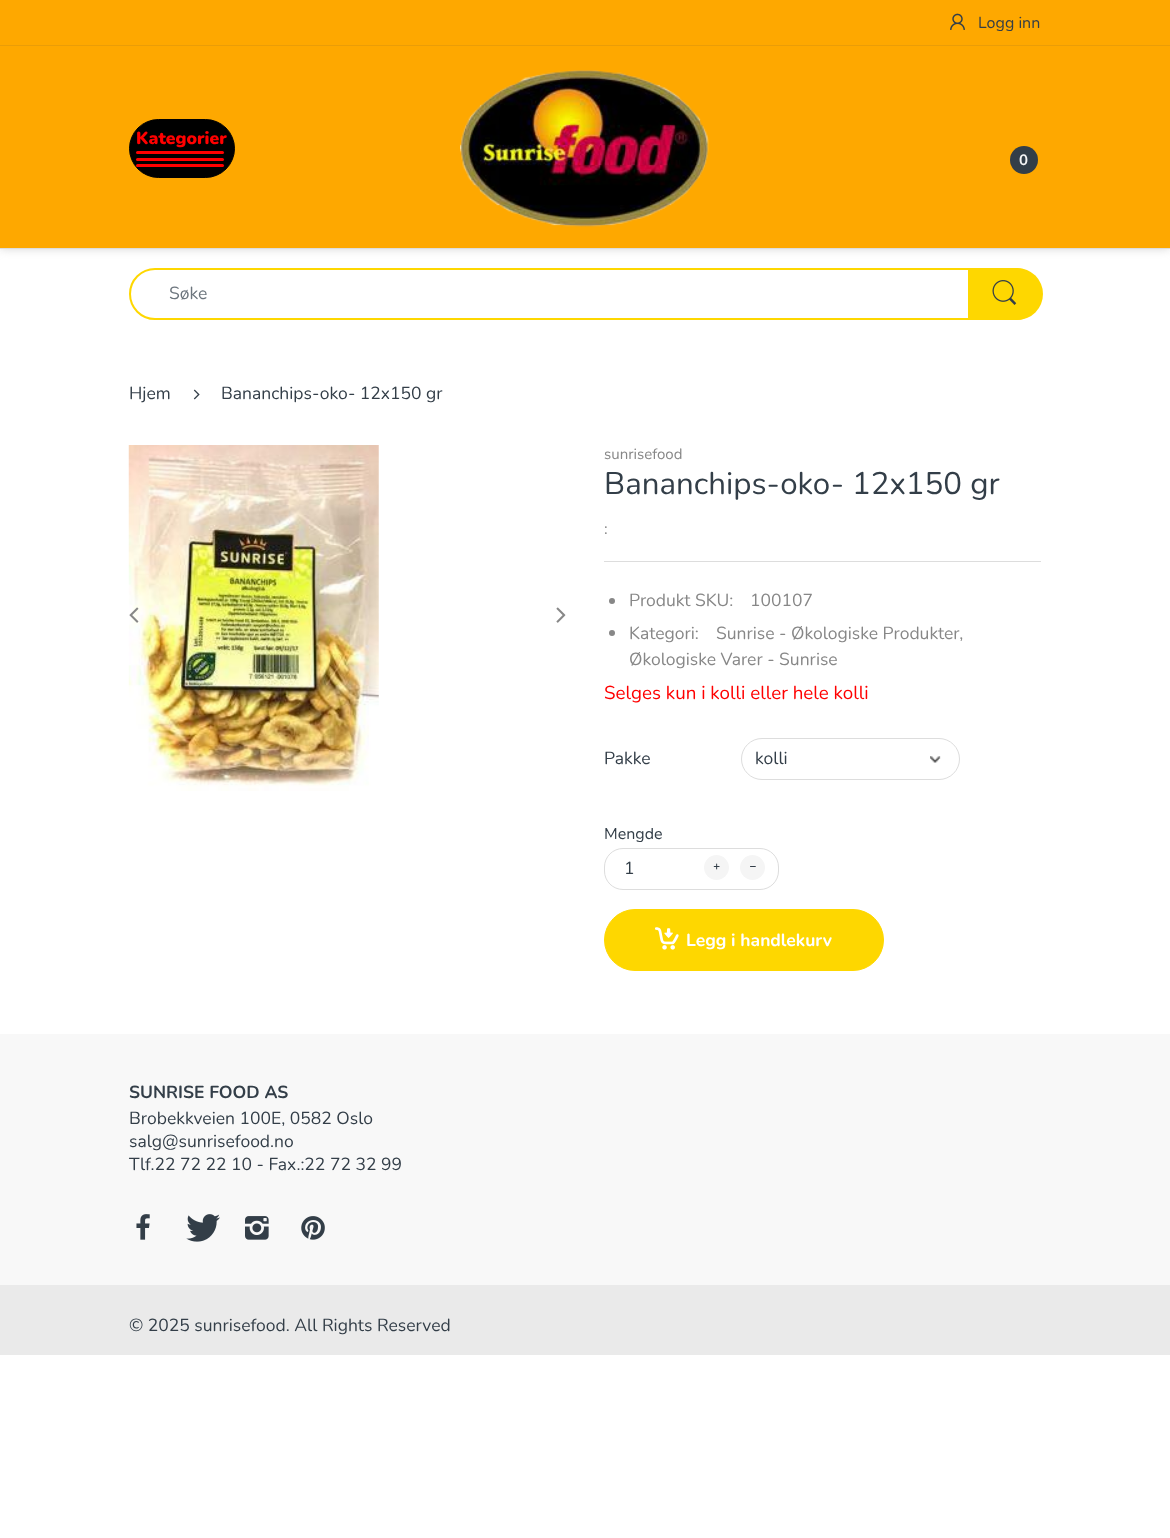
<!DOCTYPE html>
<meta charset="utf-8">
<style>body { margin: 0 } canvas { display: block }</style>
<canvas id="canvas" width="1170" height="1538"></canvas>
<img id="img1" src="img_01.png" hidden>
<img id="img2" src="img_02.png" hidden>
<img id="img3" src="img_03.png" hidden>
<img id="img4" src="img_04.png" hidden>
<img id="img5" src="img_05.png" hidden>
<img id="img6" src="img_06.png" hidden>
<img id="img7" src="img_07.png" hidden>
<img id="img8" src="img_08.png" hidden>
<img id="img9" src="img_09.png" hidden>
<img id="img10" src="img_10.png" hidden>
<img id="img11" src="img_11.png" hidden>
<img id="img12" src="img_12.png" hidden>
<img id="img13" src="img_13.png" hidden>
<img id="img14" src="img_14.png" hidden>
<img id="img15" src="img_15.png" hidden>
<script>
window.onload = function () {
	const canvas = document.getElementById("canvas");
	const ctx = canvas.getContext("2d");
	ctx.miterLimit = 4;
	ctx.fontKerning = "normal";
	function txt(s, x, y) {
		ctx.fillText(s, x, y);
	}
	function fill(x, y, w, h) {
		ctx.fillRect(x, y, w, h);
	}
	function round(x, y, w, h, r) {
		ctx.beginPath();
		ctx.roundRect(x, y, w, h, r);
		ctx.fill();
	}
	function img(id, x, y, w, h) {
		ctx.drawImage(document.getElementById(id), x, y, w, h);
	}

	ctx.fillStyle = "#FFFFFF";
	fill(0, 0, 1170, 1538);
	ctx.fillStyle = "rgba(201, 201, 201, 0.75)";
	ctx.filter = "blur(5px)";
	ctx.beginPath();
	ctx.rect(0, 0, 1170, 249);
	ctx.fill();
	ctx.filter = "none";
	ctx.fillStyle = "#FEA800";
	fill(0, 0, 1170, 248);
	ctx.fillStyle = "#DDDDDD";
	fill(0, 248, 1170, 1);
	ctx.fillStyle = "#EA9D07";
	fill(0, 45, 1170, 1);
	img("img1", 950, 13, 15, 17);
	ctx.fillStyle = "#000000";
	ctx.beginPath();
	ctx.roundRect(129.5, 119.5, 105, 58, 29);
	ctx.fill();
	ctx.strokeStyle = "#000000";
	ctx.stroke();
	ctx.fillStyle = "#FF0000";
	round(136, 151, 88, 3, 1.5);
	round(136, 158, 88, 3, 1.5);
	round(136, 164, 88, 3, 1.5);
	img("img2", 460, 70, 249, 157);
	ctx.fillStyle = "#333E48";
	ctx.beginPath();
	ctx.arc(1024, 160, 14, 0, Math.PI * 2);
	ctx.fill();
	ctx.beginPath();
	ctx.roundRect(130.5, 269.5, 909, 49, 24.5);
	ctx.strokeStyle = "#FED700";
	ctx.lineWidth = 3;
	ctx.stroke();
	ctx.fillStyle = "#FFFFFF";
	round(131, 270, 908, 48, 24);
	ctx.fillStyle = "#FED700";
	ctx.beginPath();
	ctx.roundRect(968, 268, 75, 52, [0, 26, 26, 0]);
	ctx.fill();
	img("img3", 992, 280, 25, 25);
	img("img4", 193, 389, 7, 11);
	img("img5", 128, 445, 251, 346);
	img("img6", 129, 607, 10, 16);
	img("img7", 556, 607, 10, 16);
	ctx.fillStyle = "#DDDDDD";
	fill(604, 561, 437, 1);
	ctx.fillStyle = "#878787";
	ctx.beginPath();
	ctx.arc(612, 601, 3, 0, Math.PI * 2);
	ctx.fill();
	ctx.beginPath();
	ctx.arc(612, 633, 3, 0, Math.PI * 2);
	ctx.fill();
	img("img8", 930, 756, 11, 7);
	ctx.beginPath();
	ctx.roundRect(741.5, 738.5, 218, 41, 20.5);
	ctx.strokeStyle = "#DDDDDD";
	ctx.lineWidth = 1;
	ctx.stroke();
	ctx.beginPath();
	ctx.roundRect(604.5, 848.5, 174, 41, 18.5);
	ctx.stroke();
	ctx.fillStyle = "#F5F5F5";
	ctx.beginPath();
	ctx.arc(716.5, 867.5, 12.5, 0, Math.PI * 2);
	ctx.fill();
	img("img9", 713, 863, 7, 7);
	ctx.beginPath();
	ctx.arc(752.5, 867.5, 12.5, 0, Math.PI * 2);
	ctx.fill();
	img("img10", 750, 866, 6, 1);
	ctx.fillStyle = "#FED700";
	ctx.beginPath();
	ctx.roundRect(604.5, 909.5, 279, 61, 30.5);
	ctx.fill();
	ctx.strokeStyle = "#FED700";
	ctx.stroke();
	img("img11", 655, 927, 24, 23);
	ctx.fillStyle = "#F8F8F8";
	fill(0, 1034, 1170, 251);
	img("img12", 136, 1214, 14, 26);
	img("img13", 186, 1214, 34, 28);
	img("img14", 245, 1216, 24, 24);
	img("img15", 301, 1216, 24, 24);
	ctx.fillStyle = "#EAEAEA";
	fill(0, 1285, 1170, 70);
	ctx.font = "16px Nunito";
	ctx.fillStyle = "#333E48";
	txt("Logg inn", 978, 28);
	ctx.font = "900 17.5px Nunito";
	ctx.fillStyle = "#FF0000";
	txt("Kategorier", 136, 144);
	ctx.font = "bold 15px Nunito";
	ctx.fillStyle = "#F5F5F5";
	txt("0", 1019, 165);
	ctx.font = "17.5px Nunito";
	ctx.fillStyle = "#6C757D";
	txt("Søke", 169, 299);
	ctx.fillStyle = "#333E48";
	txt("Hjem", 129, 399);
	txt("Bananchips-oko- 12x150 gr", 221, 399);
	ctx.font = "15px Nunito";
	ctx.fillStyle = "#878787";
	txt("sunrisefood", 604, 459);
	ctx.font = "31.25px Nunito";
	ctx.fillStyle = "#333E48";
	txt("Bananchips-oko- 12x150 gr", 604, 494);
	ctx.font = "16px Nunito";
	ctx.fillStyle = "#878787";
	txt(":", 604, 534);
	ctx.font = "17.5px Nunito";
	txt("Produkt SKU:", 629, 606);
	txt("100107", 750, 606);
	txt("Kategori:", 629, 639);
	txt("Sunrise - Økologiske Produkter,", 716, 639);
	txt("Økologiske Varer - Sunrise", 629, 665);
	ctx.font = "18.75px Nunito";
	ctx.fillStyle = "#FF0000";
	txt("Selges kun i kolli eller hele kolli", 604, 699);
	ctx.font = "17.5px Nunito";
	ctx.fillStyle = "#333E48";
	txt("Pakke", 604, 764);
	txt("kolli", 755, 764);
	ctx.save();
	ctx.beginPath();
	ctx.rect(604, 828, 437, 162);
	ctx.clip();
	ctx.font = "16px Nunito";
	txt("Mengde", 604, 839);
	ctx.restore();
	txt("1", 624, 874);
	ctx.font = "bold 17.5px Nunito";
	ctx.fillStyle = "#FFFFFF";
	txt("Legg i handlekurv", 686, 946);
	ctx.fillStyle = "#333E48";
	txt("SUNRISE FOOD AS", 129, 1098);
	ctx.font = "17.5px Nunito";
	txt("Brobekkveien 100E, 0582 Oslo", 129, 1124);
	txt("salg@sunrisefood.no", 129, 1147);
	txt("Tlf.22 72 22 10 - Fax.:22 72 32 99", 129, 1170);
	txt("© 2025 sunrisefood. All Rights Reserved", 129, 1331);
};
</script>
